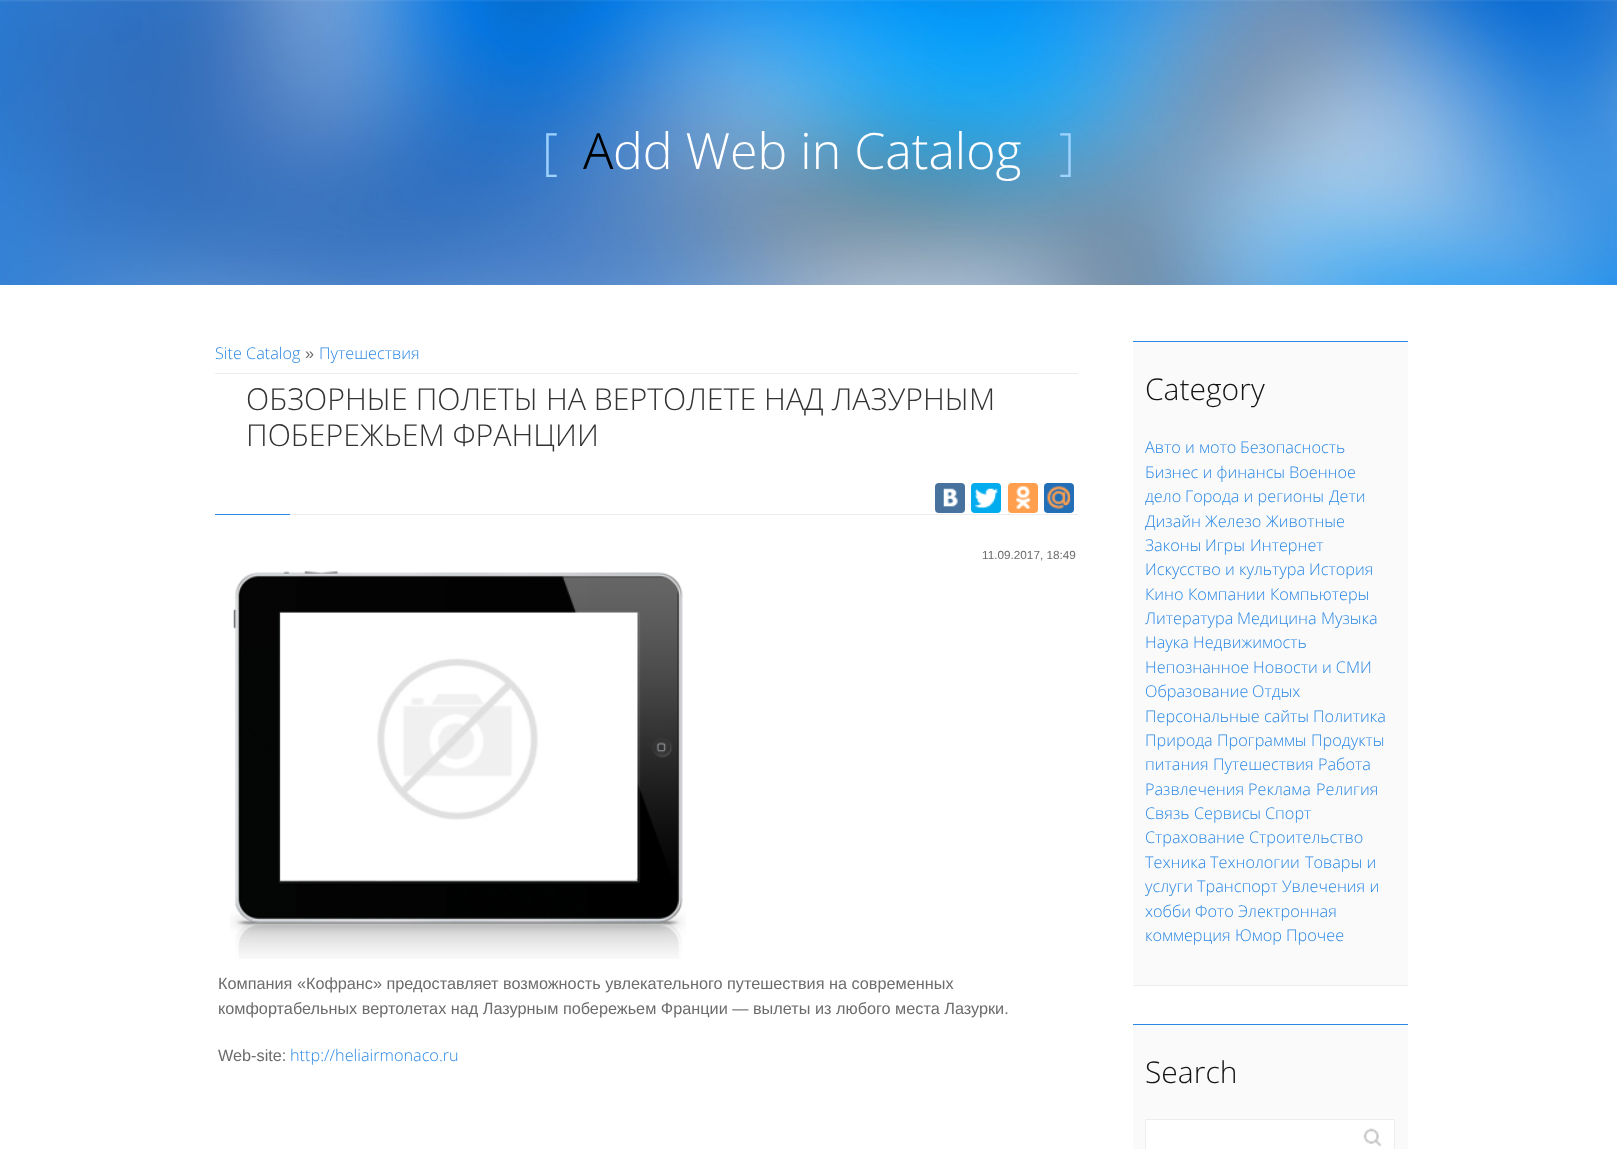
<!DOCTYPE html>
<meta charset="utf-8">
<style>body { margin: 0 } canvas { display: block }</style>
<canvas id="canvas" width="1617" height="1149"></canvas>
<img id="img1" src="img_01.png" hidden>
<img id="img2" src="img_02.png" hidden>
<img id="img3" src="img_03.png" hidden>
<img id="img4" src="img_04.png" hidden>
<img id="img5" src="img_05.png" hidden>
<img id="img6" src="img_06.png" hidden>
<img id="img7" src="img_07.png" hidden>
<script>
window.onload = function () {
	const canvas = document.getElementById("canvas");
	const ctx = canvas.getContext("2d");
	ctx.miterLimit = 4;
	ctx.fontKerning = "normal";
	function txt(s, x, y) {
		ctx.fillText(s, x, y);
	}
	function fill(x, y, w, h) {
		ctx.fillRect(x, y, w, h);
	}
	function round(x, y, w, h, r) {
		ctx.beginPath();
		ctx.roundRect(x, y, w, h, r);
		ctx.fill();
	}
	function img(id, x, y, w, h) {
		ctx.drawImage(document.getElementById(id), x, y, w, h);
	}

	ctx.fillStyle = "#FFFFFF";
	fill(0, 0, 1617, 1149);
	img("img1", 0, 0, 1617, 285);
	ctx.fillStyle = "#EDEDED";
	fill(215, 373, 863, 1);
	ctx.fillStyle = "#48729E";
	round(935, 483, 30, 30, 4);
	img("img2", 943, 488, 15, 19);
	ctx.fillStyle = "#00ACED";
	round(971, 483, 30, 30, 4);
	img("img3", 974, 488, 24, 20);
	ctx.fillStyle = "#FF9F4D";
	round(1008, 483, 30, 30, 4);
	img("img4", 1016, 486, 15, 23);
	ctx.fillStyle = "#226EB7";
	round(1044, 483, 30, 30, 4);
	img("img5", 1047, 486, 24, 23);
	ctx.fillStyle = "#EDEDED";
	fill(290, 514, 788, 1);
	ctx.fillStyle = "#2B88E4";
	fill(215, 514, 75, 1);
	img("img6", 230, 571, 456, 388);
	ctx.fillStyle = "#FAFAFA";
	fill(1133, 342, 275, 643);
	ctx.fillStyle = "#2B88E4";
	fill(1133, 341, 275, 1);
	ctx.fillStyle = "#EDEDED";
	fill(1133, 985, 275, 1);
	ctx.fillStyle = "#FAFAFA";
	fill(1133, 1025, 275, 124);
	ctx.fillStyle = "#2B88E4";
	fill(1133, 1024, 275, 1);
	ctx.fillStyle = "#FFFFFF";
	ctx.beginPath();
	ctx.rect(1145.5, 1119.5, 249, 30);
	ctx.fill();
	ctx.strokeStyle = "#EDEDED";
	ctx.stroke();
	img("img7", 1363, 1128, 19, 19);
	ctx.font = "300 50px Open Sans";
	ctx.fillStyle = "#9FD3FF";
	txt("[", 542, 169);
	ctx.font = "300 50px Noto Sans";
	ctx.fillStyle = "#000000";
	txt("A", 583, 169);
	ctx.font = "300 50px Open Sans";
	ctx.fillStyle = "#FFFFFF";
	txt("dd Web in Catalog", 613, 169);
	ctx.fillStyle = "#9FD3FF";
	txt("]", 1059, 169);
	ctx.font = "300 16.25px Open Sans";
	ctx.fillStyle = "#2B88E4";
	txt("Site Catalog", 215, 359);
	ctx.font = "16.25px Liberation Sans";
	ctx.fillStyle = "#6C6C6C";
	txt("»", 305, 359);
	ctx.font = "300 16.25px Open Sans";
	ctx.fillStyle = "#2B88E4";
	txt("Путешествия", 319, 359);
	ctx.font = "300 30.3px Open Sans";
	ctx.fillStyle = "#333333";
	txt("ОБЗОРНЫЕ ПОЛЕТЫ НА ВЕРТОЛЕТЕ НАД ЛАЗУРНЫМ", 246, 410);
	txt("ПОБЕРЕЖЬЕМ ФРАНЦИИ", 246, 446);
	ctx.font = "11.75px Liberation Sans";
	ctx.fillStyle = "#6C6C6C";
	txt("11.09.2017, 18:49", 982, 559);
	ctx.font = "16.25px Liberation Sans";
	txt("Компания «Кофранс» предоставляет возможность увлекательного путешествия на современных", 218, 989);
	txt("комфортабельных вертолетах над Лазурным побережьем Франции — вылеты из любого места Лазурки.", 218, 1014);
	txt("Web-site:", 218, 1061);
	ctx.font = "300 16.25px Open Sans";
	ctx.fillStyle = "#2B88E4";
	txt("http://heliairmonaco.ru", 290, 1061);
	ctx.font = "300 30px Open Sans";
	ctx.fillStyle = "#151515";
	txt("Category", 1145, 400);
	ctx.font = "300 16.25px Open Sans";
	ctx.fillStyle = "#2B88E4";
	txt("Авто и мото", 1145, 453);
	txt("Безопасность", 1240, 453);
	txt("Бизнес и финансы", 1145, 478);
	txt("Военное", 1289, 478);
	txt("дело", 1145, 502);
	txt("Города и регионы", 1185, 502);
	txt("Дети", 1329, 502);
	txt("Дизайн", 1145, 527);
	txt("Железо", 1205, 527);
	txt("Животные", 1266, 527);
	txt("Законы", 1145, 551);
	txt("Игры", 1205, 551);
	txt("Интернет", 1250, 551);
	txt("Искусство и культура", 1145, 575);
	txt("История", 1309, 575);
	txt("Кино", 1145, 600);
	txt("Компании", 1188, 600);
	txt("Компьютеры", 1270, 600);
	txt("Литература", 1145, 624);
	txt("Медицина", 1237, 624);
	txt("Музыка", 1321, 624);
	txt("Наука", 1145, 648);
	txt("Недвижимость", 1193, 648);
	txt("Непознанное", 1145, 673);
	txt("Новости и СМИ", 1253, 673);
	txt("Образование", 1145, 697);
	txt("Отдых", 1252, 697);
	txt("Персональные сайты", 1145, 722);
	txt("Политика", 1313, 722);
	txt("Природа", 1145, 746);
	txt("Программы", 1217, 746);
	txt("Продукты", 1311, 746);
	txt("питания", 1145, 770);
	txt("Путешествия", 1213, 770);
	txt("Работа", 1318, 770);
	txt("Развлечения", 1145, 795);
	txt("Реклама", 1248, 795);
	txt("Религия", 1316, 795);
	txt("Связь", 1145, 819);
	txt("Сервисы", 1194, 819);
	txt("Спорт", 1265, 819);
	txt("Страхование", 1145, 843);
	txt("Строительство", 1249, 843);
	txt("Техника", 1145, 868);
	txt("Технологии", 1210, 868);
	txt("Товары и", 1305, 868);
	txt("услуги", 1145, 892);
	txt("Транспорт", 1197, 892);
	txt("Увлечения и", 1282, 892);
	txt("хобби", 1145, 917);
	txt("Фото", 1195, 917);
	txt("Электронная", 1238, 917);
	txt("коммерция", 1145, 941);
	txt("Юмор", 1235, 941);
	txt("Прочее", 1286, 941);
	ctx.font = "300 30px Open Sans";
	ctx.fillStyle = "#151515";
	txt("Search", 1145, 1083);
};
</script>
